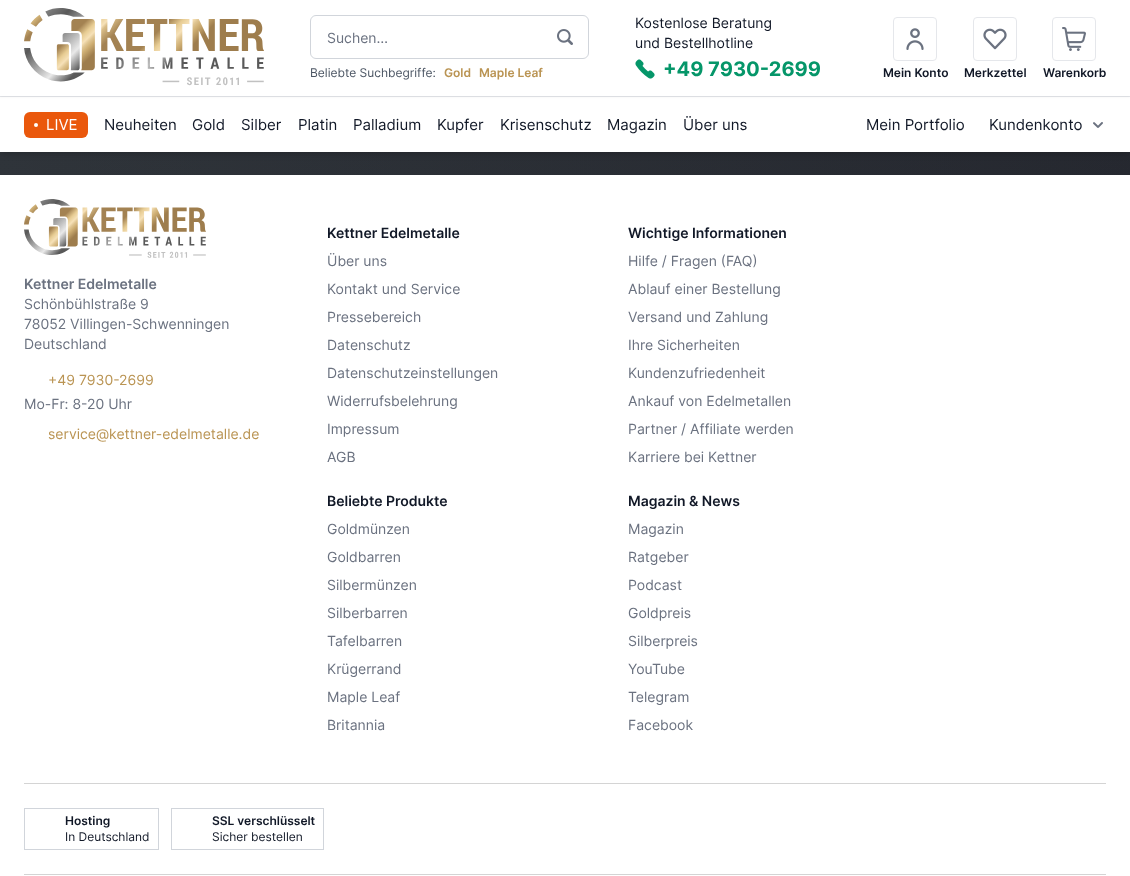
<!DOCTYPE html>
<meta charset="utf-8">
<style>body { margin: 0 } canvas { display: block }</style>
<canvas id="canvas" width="1130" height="876"></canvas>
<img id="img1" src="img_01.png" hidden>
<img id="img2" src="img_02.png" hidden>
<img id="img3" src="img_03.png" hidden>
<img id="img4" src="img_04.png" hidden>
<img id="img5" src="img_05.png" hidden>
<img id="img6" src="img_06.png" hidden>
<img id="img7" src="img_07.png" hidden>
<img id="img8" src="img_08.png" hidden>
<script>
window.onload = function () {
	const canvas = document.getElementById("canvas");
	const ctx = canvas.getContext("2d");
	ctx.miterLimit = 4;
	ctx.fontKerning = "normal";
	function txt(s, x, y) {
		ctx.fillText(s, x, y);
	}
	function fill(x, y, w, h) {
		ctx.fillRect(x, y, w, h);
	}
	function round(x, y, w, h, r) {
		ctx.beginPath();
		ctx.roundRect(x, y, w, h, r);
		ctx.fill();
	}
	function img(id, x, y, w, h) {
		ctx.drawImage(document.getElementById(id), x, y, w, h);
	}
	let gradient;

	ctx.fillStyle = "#FFFFFF";
	fill(0, 0, 1130, 876);
	gradient = ctx.createLinearGradient(0, 65, 1130, 65);
	gradient.addColorStop(0, "#1F2937");
	gradient.addColorStop(1, "#111827");
	ctx.fillStyle = gradient;
	fill(0, 152, 1130, 23);
	gradient = ctx.createLinearGradient(0, 65, 1130, 65);
	gradient.addColorStop(0, "rgba(186, 148, 83, 0.1)");
	gradient.addColorStop(1, "rgba(218, 183, 124, 0.1)");
	ctx.fillStyle = gradient;
	fill(0, 152, 1130, 23);
	ctx.fillStyle = "rgba(0, 0, 0, 0.1)";
	ctx.filter = "blur(2px)";
	ctx.beginPath();
	ctx.rect(2, 100, 1126, 52);
	ctx.fill();
	ctx.filter = "none";
	ctx.filter = "blur(3px)";
	ctx.beginPath();
	ctx.rect(1, 101, 1128, 54);
	ctx.fill();
	ctx.filter = "none";
	ctx.fillStyle = "#FFFFFF";
	fill(0, 97, 1130, 55);
	ctx.fillStyle = "#E5E7EB";
	fill(0, 96, 1130, 1);
	ctx.fillStyle = "rgba(0, 0, 0, 0.05)";
	ctx.filter = "blur(1px)";
	ctx.beginPath();
	ctx.rect(0, 1, 1130, 96);
	ctx.fill();
	ctx.filter = "none";
	ctx.fillStyle = "#FFFFFF";
	fill(0, 0, 1130, 96);
	img("img1", 24, 8, 240, 78);
	ctx.beginPath();
	ctx.roundRect(310.5, 15.5, 278, 43, 5.5);
	ctx.strokeStyle = "#D1D5DB";
	ctx.stroke();
	img("img2", 557, 29, 16, 16);
	img("img3", 635, 59, 20, 20);
	ctx.beginPath();
	ctx.roundRect(893.5, 17.5, 43, 43, 3.5);
	ctx.strokeStyle = "#E5E7EB";
	ctx.stroke();
	img("img4", 906, 28, 18, 22);
	ctx.beginPath();
	ctx.roundRect(973.5, 17.5, 43, 43, 3.5);
	ctx.stroke();
	img("img5", 983, 28, 24, 22);
	ctx.beginPath();
	ctx.roundRect(1052.5, 17.5, 43, 43, 3.5);
	ctx.stroke();
	img("img6", 1062, 27, 24, 24);
	ctx.fillStyle = "#EA580C";
	round(24, 112, 64, 26, 6);
	ctx.fillStyle = "#FFFFFF";
	ctx.beginPath();
	ctx.arc(36, 125, 2, 0, Math.PI * 2);
	ctx.fill();
	img("img7", 1093, 122, 10, 6);
	img("img8", 24, 199, 182, 59);
	ctx.fillStyle = "#D4D4D4";
	fill(24, 783, 1082, 1);
	ctx.strokeStyle = "#D1D5DB";
	ctx.strokeRect(24.5, 808.5, 134, 41);
	ctx.strokeRect(171.5, 808.5, 152, 41);
	fill(24, 874, 1082, 1);
	ctx.font = "14px Inter";
	ctx.fillStyle = "#6B7280";
	txt("Suchen…", 327, 43);
	ctx.font = "12px Inter";
	ctx.fillStyle = "#4B5563";
	txt("Beliebte Suchbegriffe:", 310, 77);
	ctx.font = "600 12px Inter";
	ctx.fillStyle = "#BA9453";
	txt("Gold", 444, 77);
	txt("Maple Leaf", 479, 77);
	ctx.font = "14px Inter";
	ctx.fillStyle = "#111827";
	txt("Kostenlose Beratung", 635, 28);
	txt("und Bestellhotline", 635, 48);
	ctx.font = "bold 20px Inter";
	ctx.fillStyle = "#059669";
	txt("+49 7930-2699", 663, 76);
	ctx.font = "600 12px Inter";
	ctx.fillStyle = "#111827";
	txt("Mein Konto", 883, 77);
	txt("Merkzettel", 964, 77);
	txt("Warenkorb", 1043, 77);
	ctx.font = "15px Inter";
	ctx.fillStyle = "#FFFFFF";
	txt("LIVE", 46, 130);
	ctx.fillStyle = "#111827";
	txt("Neuheiten", 104, 130);
	txt("Gold", 192, 130);
	txt("Silber", 241, 130);
	txt("Platin", 298, 130);
	txt("Palladium", 353, 130);
	txt("Kupfer", 437, 130);
	txt("Krisenschutz", 500, 130);
	txt("Magazin", 607, 130);
	txt("Über uns", 683, 130);
	txt("Mein Portfolio", 866, 130);
	txt("Kundenkonto", 989, 130);
	ctx.font = "600 14px Inter";
	ctx.fillStyle = "#6B7280";
	txt("Kettner Edelmetalle", 24, 289);
	ctx.font = "14px Inter";
	txt("Schönbühlstraße 9", 24, 309);
	txt("78052 Villingen-Schwenningen", 24, 329);
	txt("Deutschland", 24, 349);
	ctx.fillStyle = "#BA9453";
	txt("+49 7930-2699", 48, 385);
	ctx.fillStyle = "#6B7280";
	txt("Mo-Fr: 8-20 Uhr", 24, 409);
	ctx.fillStyle = "#BA9453";
	txt("service@kettner-edelmetalle.de", 48, 439);
	ctx.font = "600 14px Inter";
	ctx.fillStyle = "#111827";
	txt("Kettner Edelmetalle", 327, 238);
	ctx.font = "14px Inter";
	ctx.fillStyle = "#6B7280";
	txt("Über uns", 327, 266);
	txt("Kontakt und Service", 327, 294);
	txt("Pressebereich", 327, 322);
	txt("Datenschutz", 327, 350);
	txt("Datenschutzeinstellungen", 327, 378);
	txt("Widerrufsbelehrung", 327, 406);
	txt("Impressum", 327, 434);
	txt("AGB", 327, 462);
	ctx.font = "600 14px Inter";
	ctx.fillStyle = "#111827";
	txt("Wichtige Informationen", 628, 238);
	ctx.font = "14px Inter";
	ctx.fillStyle = "#6B7280";
	txt("Hilfe / Fragen (FAQ)", 628, 266);
	txt("Ablauf einer Bestellung", 628, 294);
	txt("Versand und Zahlung", 628, 322);
	txt("Ihre Sicherheiten", 628, 350);
	txt("Kundenzufriedenheit", 628, 378);
	txt("Ankauf von Edelmetallen", 628, 406);
	txt("Partner / Affiliate werden", 628, 434);
	txt("Karriere bei Kettner", 628, 462);
	ctx.font = "600 14px Inter";
	ctx.fillStyle = "#111827";
	txt("Beliebte Produkte", 327, 506);
	ctx.font = "14px Inter";
	ctx.fillStyle = "#6B7280";
	txt("Goldmünzen", 327, 534);
	txt("Goldbarren", 327, 562);
	txt("Silbermünzen", 327, 590);
	txt("Silberbarren", 327, 618);
	txt("Tafelbarren", 327, 646);
	txt("Krügerrand", 327, 674);
	txt("Maple Leaf", 327, 702);
	txt("Britannia", 327, 730);
	ctx.font = "600 14px Inter";
	ctx.fillStyle = "#111827";
	txt("Magazin & News", 628, 506);
	ctx.font = "14px Inter";
	ctx.fillStyle = "#6B7280";
	txt("Magazin", 628, 534);
	txt("Ratgeber", 628, 562);
	txt("Podcast", 628, 590);
	txt("Goldpreis", 628, 618);
	txt("Silberpreis", 628, 646);
	txt("YouTube", 628, 674);
	txt("Telegram", 628, 702);
	txt("Facebook", 628, 730);
	ctx.font = "600 12px Inter";
	ctx.fillStyle = "#111827";
	txt("Hosting", 65, 825);
	ctx.font = "12px Inter";
	txt("In Deutschland", 65, 841);
	ctx.font = "600 12px Inter";
	txt("SSL verschlüsselt", 212, 825);
	ctx.font = "12px Inter";
	txt("Sicher bestellen", 212, 841);
};
</script>
